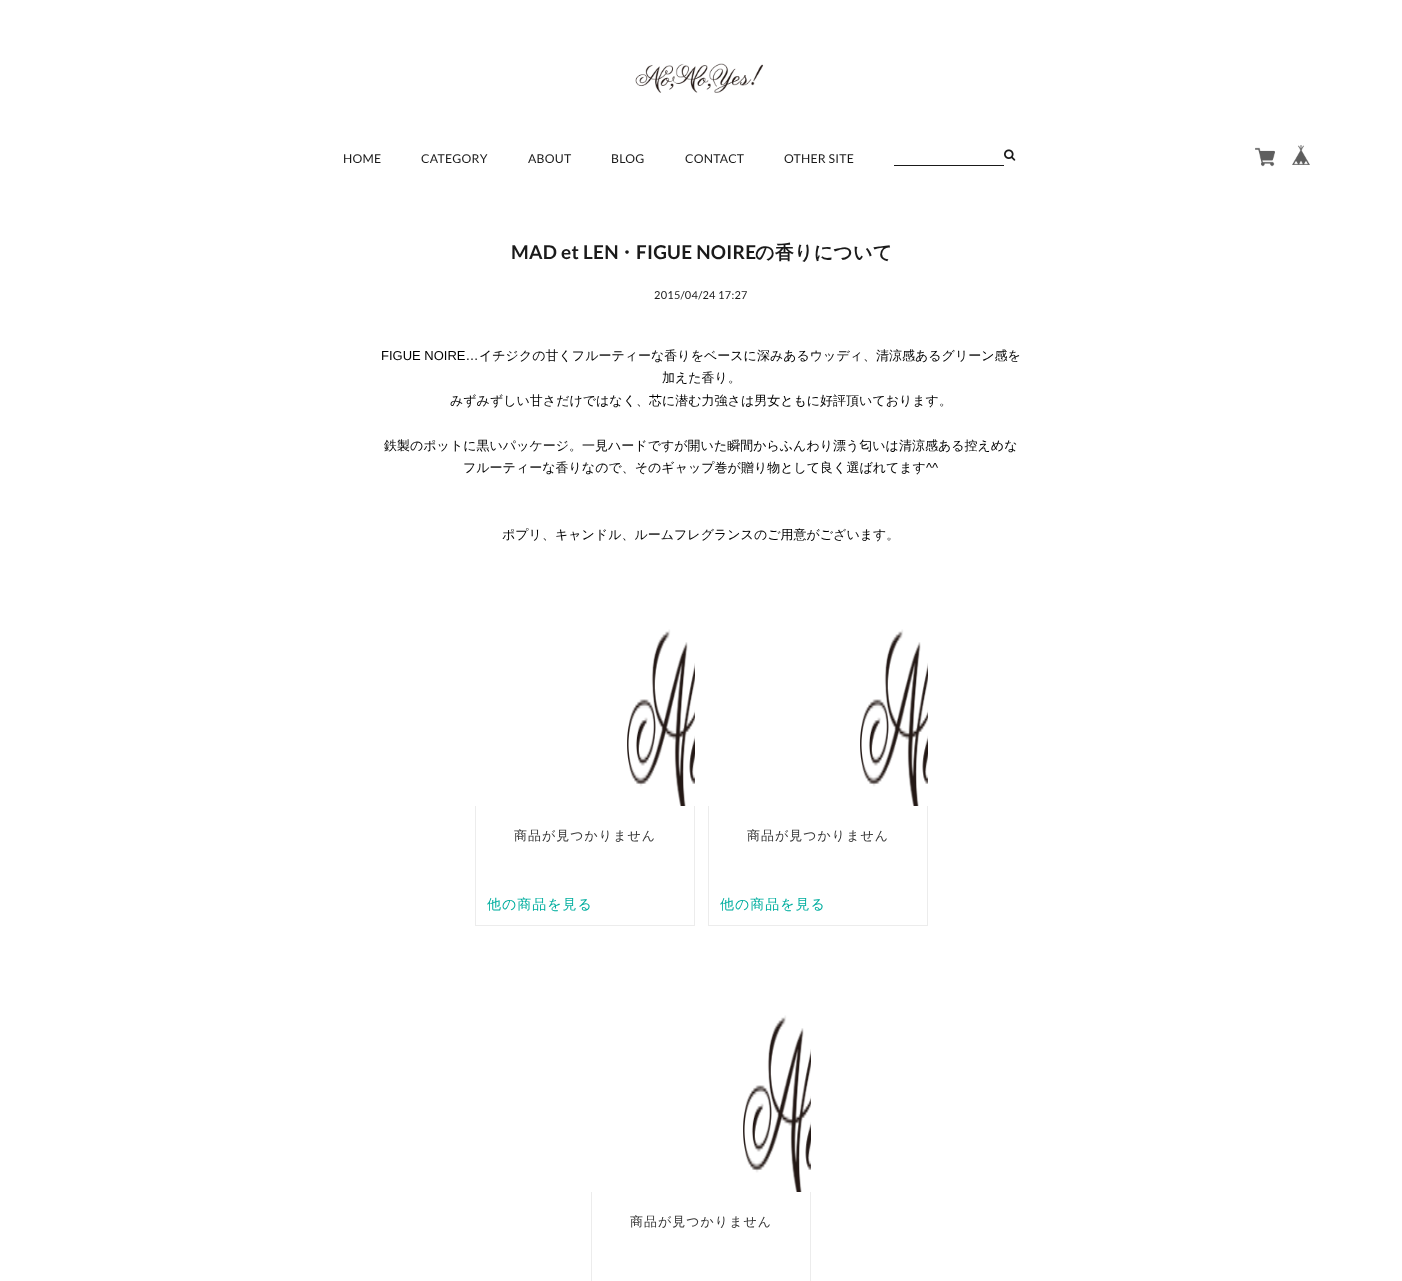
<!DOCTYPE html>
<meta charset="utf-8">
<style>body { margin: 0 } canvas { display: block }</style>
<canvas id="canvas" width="1402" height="1281"></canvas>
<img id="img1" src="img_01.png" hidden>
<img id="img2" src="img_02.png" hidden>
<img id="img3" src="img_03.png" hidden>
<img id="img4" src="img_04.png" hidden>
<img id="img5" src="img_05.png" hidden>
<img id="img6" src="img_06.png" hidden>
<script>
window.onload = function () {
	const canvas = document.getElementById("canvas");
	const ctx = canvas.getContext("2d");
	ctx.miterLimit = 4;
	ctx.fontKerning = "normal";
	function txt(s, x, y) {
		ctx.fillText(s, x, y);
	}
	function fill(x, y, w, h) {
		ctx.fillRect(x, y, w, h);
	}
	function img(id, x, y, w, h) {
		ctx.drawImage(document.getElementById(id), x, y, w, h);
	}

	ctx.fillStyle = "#FFFFFF";
	fill(0, 0, 1402, 1281);
	img("img1", 1004, 149, 12, 12);
	ctx.fillStyle = "#1A1A1A";
	fill(894, 165, 110, 1);
	img("img2", 635, 63, 129, 30);
	img("img3", 1255, 147, 20, 20);
	img("img4", 1292, 145, 18, 20);
	img("img5", 475, 629, 220, 297);
	img("img5", 708, 629, 220, 297);
	img("img6", 591, 1015, 220, 266);
	ctx.letterSpacing = "0.25px";
	ctx.font = "12.25px Lato";
	txt("HOME", 343, 163);
	txt("CATEGORY", 421, 163);
	txt("ABOUT", 528, 163);
	txt("BLOG", 611, 163);
	txt("CONTACT", 685, 163);
	txt("OTHER SITE", 784, 163);
	ctx.font = "bold 19px Lato";
	txt("MAD et LEN", 511, 259);
	ctx.font = "bold 19px WenQuanYi Zen Hei";
	txt("・", 617, 259);
	ctx.font = "bold 19px Lato";
	txt("FIGUE NOIRE", 636, 259);
	ctx.font = "bold 19px WenQuanYi Zen Hei";
	txt("の香りについて", 755, 259);
	ctx.font = "11px Lato";
	txt("2015/04/24 17:27", 654, 299);
	ctx.letterSpacing = "0px";
	ctx.font = "13px Liberation Sans";
	ctx.fillStyle = "#000000";
	txt("FIGUE NOIRE…", 381, 360);
	ctx.font = "500 13px WenQuanYi Zen Hei";
	txt("イチジクの甘くフルーティーな香りをベースに深みあるウッディ、清涼感あるグリーン感を", 479, 360);
	txt("加えた香り。", 662, 382);
	txt("みずみずしい甘さだけではなく、芯に潜む力強さは男女ともに好評頂いております。", 450, 405);
	txt("鉄製のポットに黒いパッケージ。一見ハードですが開いた瞬間からふんわり漂う匂いは清涼感ある控えめな", 384, 450);
	txt("フルーティーな香りなので、そのギャップ巻が贈り物として良く選ばれてます", 463, 472);
	ctx.font = "13px Liberation Sans";
	txt("^^", 926, 472);
	ctx.font = "500 13px WenQuanYi Zen Hei";
	txt("ポプリ、キャンドル、ルームフレグランスのご用意がございます。", 502, 539);
};
</script>
